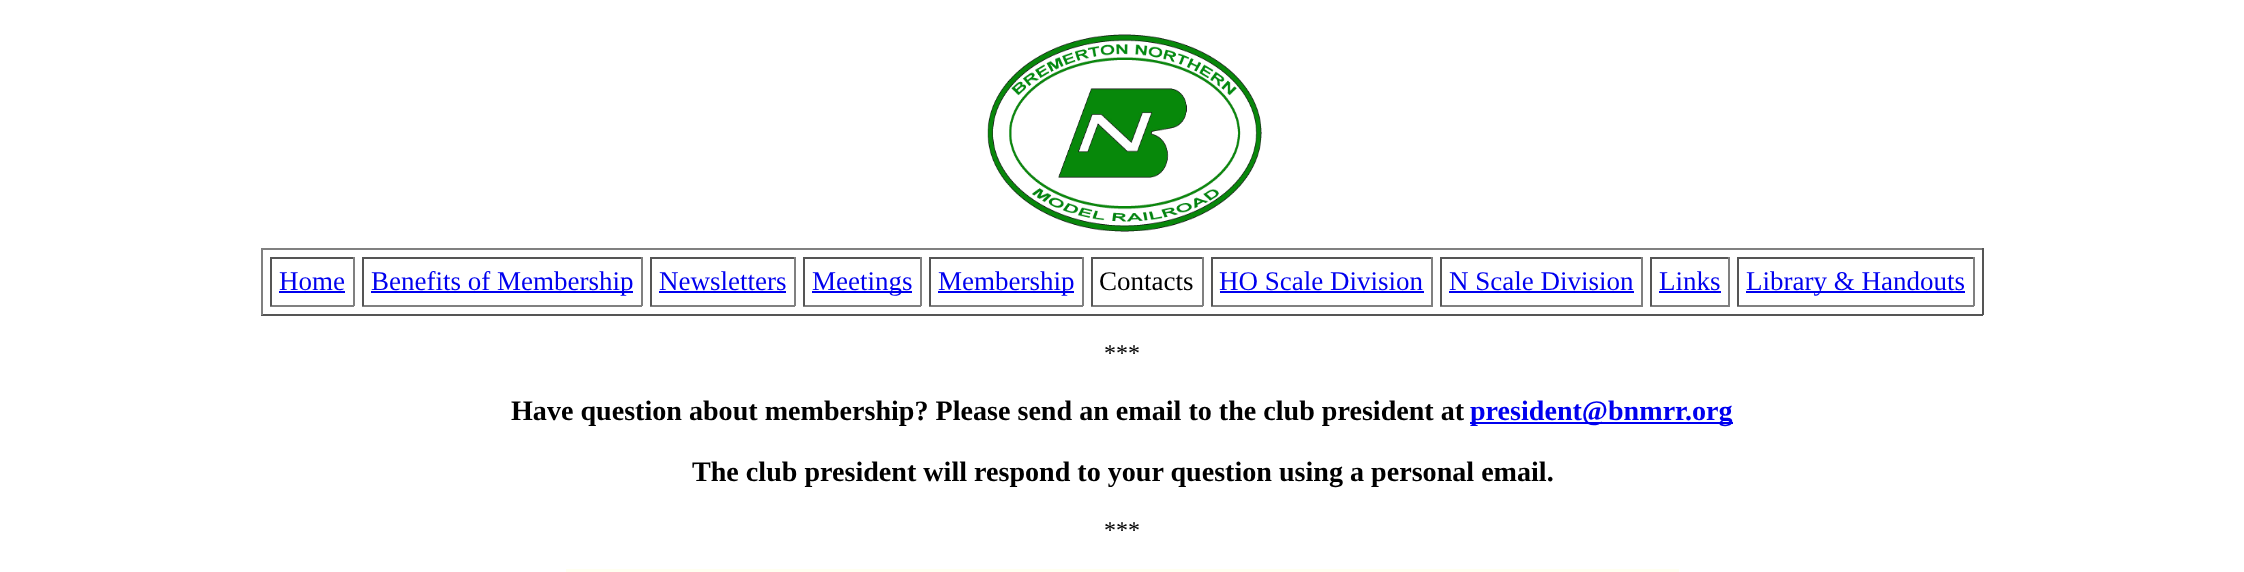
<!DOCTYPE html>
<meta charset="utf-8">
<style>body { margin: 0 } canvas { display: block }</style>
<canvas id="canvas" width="2244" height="572"></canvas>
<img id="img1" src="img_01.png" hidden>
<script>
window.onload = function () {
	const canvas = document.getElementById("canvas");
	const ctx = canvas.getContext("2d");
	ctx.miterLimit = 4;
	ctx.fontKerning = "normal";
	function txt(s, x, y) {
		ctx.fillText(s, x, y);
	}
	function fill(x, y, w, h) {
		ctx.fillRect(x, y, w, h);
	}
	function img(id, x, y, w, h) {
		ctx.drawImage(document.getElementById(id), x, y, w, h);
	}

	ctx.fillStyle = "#FFFFFF";
	fill(0, 0, 2244, 572);
	img("img1", 987, 34, 275, 198);
	ctx.fillStyle = "#808080";
	fill(261, 248, 1722, 2);
	ctx.fillStyle = "#555555";
	fill(1982, 248, 2, 67);
	fill(261, 314, 1722, 2);
	ctx.fillStyle = "#808080";
	fill(261, 248, 2, 67);
	ctx.fillStyle = "#555555";
	fill(270, 257, 84, 2);
	ctx.fillStyle = "#808080";
	fill(353, 257, 2, 49);
	fill(270, 305, 84, 2);
	ctx.fillStyle = "#555555";
	fill(270, 257, 2, 49);
	ctx.fillStyle = "#0000EE";
	fill(279, 291, 66, 2);
	ctx.fillStyle = "#555555";
	fill(362, 257, 280, 2);
	ctx.fillStyle = "#808080";
	fill(641, 257, 2, 49);
	fill(362, 305, 280, 2);
	ctx.fillStyle = "#555555";
	fill(362, 257, 2, 49);
	ctx.fillStyle = "#0000EE";
	fill(371, 291, 262, 2);
	ctx.fillStyle = "#555555";
	fill(650, 257, 145, 2);
	ctx.fillStyle = "#808080";
	fill(794, 257, 2, 49);
	fill(650, 305, 145, 2);
	ctx.fillStyle = "#555555";
	fill(650, 257, 2, 49);
	ctx.fillStyle = "#0000EE";
	fill(659, 291, 127, 2);
	ctx.fillStyle = "#555555";
	fill(803, 257, 118, 2);
	ctx.fillStyle = "#808080";
	fill(920, 257, 2, 49);
	fill(803, 305, 118, 2);
	ctx.fillStyle = "#555555";
	fill(803, 257, 2, 49);
	ctx.fillStyle = "#0000EE";
	fill(812, 291, 100, 2);
	ctx.fillStyle = "#555555";
	fill(929, 257, 154, 2);
	ctx.fillStyle = "#808080";
	fill(1082, 257, 2, 49);
	fill(929, 305, 154, 2);
	ctx.fillStyle = "#555555";
	fill(929, 257, 2, 49);
	ctx.fillStyle = "#0000EE";
	fill(938, 291, 136, 2);
	ctx.fillStyle = "#555555";
	fill(1091, 257, 112, 2);
	ctx.fillStyle = "#808080";
	fill(1202, 257, 2, 49);
	fill(1091, 305, 112, 2);
	ctx.fillStyle = "#555555";
	fill(1091, 257, 2, 49);
	fill(1211, 257, 222, 2);
	ctx.fillStyle = "#808080";
	fill(1431, 257, 2, 49);
	fill(1211, 305, 222, 2);
	ctx.fillStyle = "#555555";
	fill(1211, 257, 2, 49);
	ctx.fillStyle = "#0000EE";
	fill(1220, 291, 204, 2);
	ctx.fillStyle = "#555555";
	fill(1440, 257, 203, 2);
	ctx.fillStyle = "#808080";
	fill(1641, 257, 2, 49);
	fill(1440, 305, 203, 2);
	ctx.fillStyle = "#555555";
	fill(1440, 257, 2, 49);
	ctx.fillStyle = "#0000EE";
	fill(1449, 291, 185, 2);
	ctx.fillStyle = "#555555";
	fill(1650, 257, 80, 2);
	ctx.fillStyle = "#808080";
	fill(1728, 257, 2, 49);
	fill(1650, 305, 80, 2);
	ctx.fillStyle = "#555555";
	fill(1650, 257, 2, 49);
	ctx.fillStyle = "#0000EE";
	fill(1659, 291, 62, 2);
	ctx.fillStyle = "#555555";
	fill(1737, 257, 237, 2);
	ctx.fillStyle = "#808080";
	fill(1973, 257, 2, 49);
	fill(1737, 305, 237, 2);
	ctx.fillStyle = "#555555";
	fill(1737, 257, 2, 49);
	ctx.fillStyle = "#0000EE";
	fill(1746, 291, 219, 2);
	fill(1470, 422, 263, 2);
	ctx.fillStyle = "#FFFFF0";
	fill(566, 569, 1113, 3);
	ctx.font = "27px Liberation Serif";
	ctx.fillStyle = "#0000EE";
	txt("Home", 279, 290);
	txt("Benefits of Membership", 371, 290);
	txt("Newsletters", 659, 290);
	txt("Meetings", 812, 290);
	txt("Membership", 938, 290);
	ctx.fillStyle = "#000000";
	txt("Contacts", 1099, 290);
	ctx.fillStyle = "#0000EE";
	txt("HO Scale Division", 1219, 290);
	txt("N Scale Division", 1449, 290);
	txt("Links", 1659, 290);
	txt("Library & Handouts", 1746, 290);
	ctx.font = "24px Liberation Serif";
	ctx.fillStyle = "#000000";
	txt("***", 1104, 361);
	ctx.font = "bold 28.1px Liberation Serif";
	txt("Have question about membership? Please send an email to the club president at", 511, 420);
	ctx.fillStyle = "#0000EE";
	txt("president@bnmrr.org", 1470, 420);
	ctx.fillStyle = "#000000";
	txt("The club president will respond to your question using a personal email.", 692, 481);
	ctx.font = "24px Liberation Serif";
	txt("***", 1104, 538);
};
</script>
